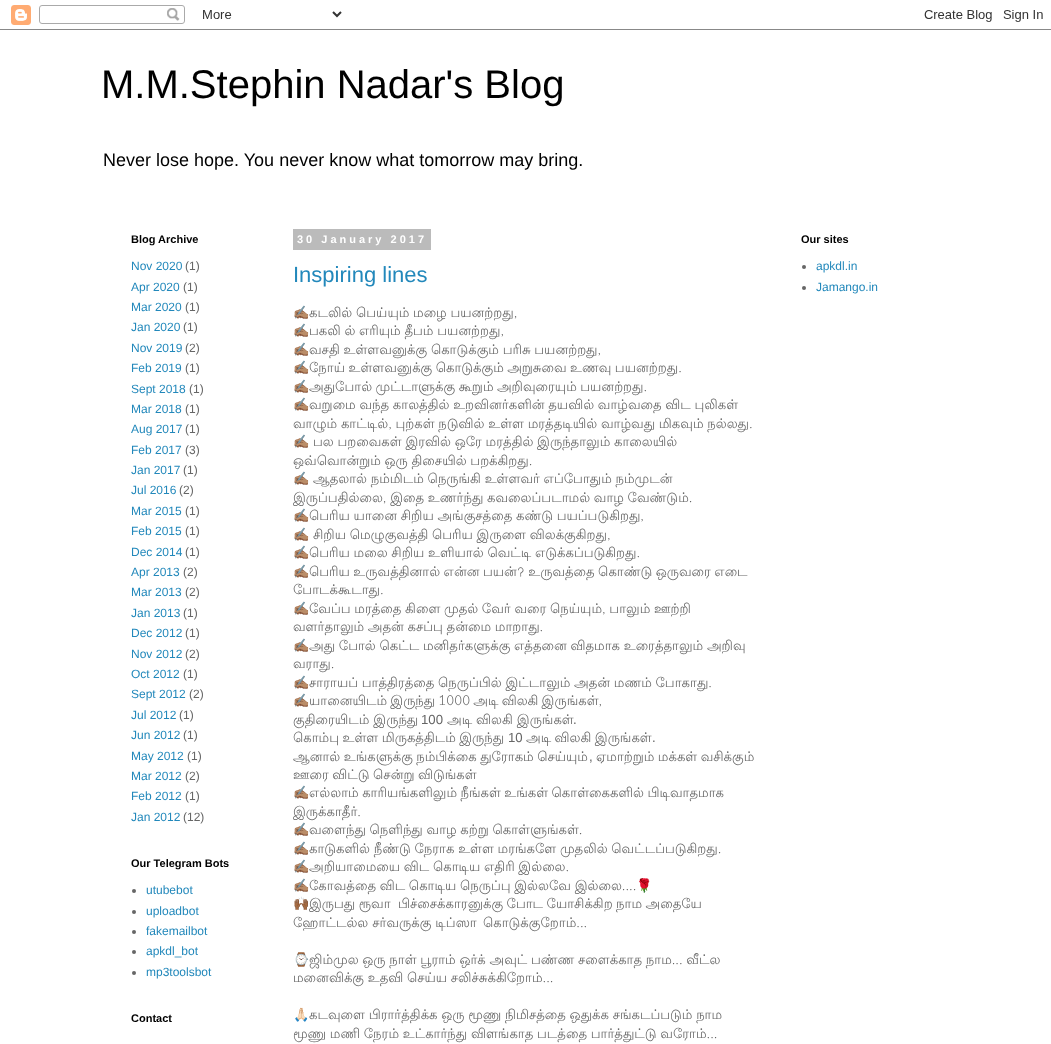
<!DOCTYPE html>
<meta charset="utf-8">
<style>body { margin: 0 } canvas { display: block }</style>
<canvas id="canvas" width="1051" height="1044"></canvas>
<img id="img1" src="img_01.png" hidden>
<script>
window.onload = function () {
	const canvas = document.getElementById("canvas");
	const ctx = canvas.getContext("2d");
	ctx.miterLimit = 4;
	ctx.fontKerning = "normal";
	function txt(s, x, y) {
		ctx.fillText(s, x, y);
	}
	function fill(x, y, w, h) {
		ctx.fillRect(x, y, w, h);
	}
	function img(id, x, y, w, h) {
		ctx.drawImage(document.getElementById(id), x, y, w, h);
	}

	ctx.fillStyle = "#FFFFFF";
	fill(0, 0, 1051, 1044);
	img("img1", 0, 5, 1051, 25);
	ctx.fillStyle = "#666666";
	ctx.beginPath();
	ctx.arc(134, 891, 2, 0, Math.PI * 2);
	ctx.fill();
	ctx.beginPath();
	ctx.arc(134, 912, 2, 0, Math.PI * 2);
	ctx.fill();
	ctx.beginPath();
	ctx.arc(134, 932, 2, 0, Math.PI * 2);
	ctx.fill();
	ctx.beginPath();
	ctx.arc(134, 952, 2, 0, Math.PI * 2);
	ctx.fill();
	ctx.beginPath();
	ctx.arc(134, 973, 2, 0, Math.PI * 2);
	ctx.fill();
	ctx.fillStyle = "#BBBBBB";
	fill(293, 229, 138, 21);
	ctx.fillStyle = "#666666";
	ctx.beginPath();
	ctx.arc(804, 267, 2, 0, Math.PI * 2);
	ctx.fill();
	ctx.beginPath();
	ctx.arc(804, 288, 2, 0, Math.PI * 2);
	ctx.fill();
	ctx.font = "40px Liberation Sans";
	ctx.fillStyle = "#000000";
	txt("M.M.Stephin Nadar's Blog", 101, 98);
	ctx.font = "18px Liberation Sans";
	txt("Never lose hope. You never know what tomorrow may bring.", 103, 166);
	ctx.font = "bold 11px Liberation Sans";
	txt("Blog Archive", 131, 243);
	ctx.font = "12px Liberation Sans";
	ctx.fillStyle = "#2288BB";
	txt("Nov 2020", 131, 270);
	ctx.fillStyle = "#666666";
	txt("(1)", 185, 270);
	ctx.fillStyle = "#2288BB";
	txt("Apr 2020", 131, 291);
	ctx.fillStyle = "#666666";
	txt("(1)", 183, 291);
	ctx.fillStyle = "#2288BB";
	txt("Mar 2020", 131, 311);
	ctx.fillStyle = "#666666";
	txt("(1)", 185, 311);
	ctx.fillStyle = "#2288BB";
	txt("Jan 2020", 131, 331);
	ctx.fillStyle = "#666666";
	txt("(1)", 183, 331);
	ctx.fillStyle = "#2288BB";
	txt("Nov 2019", 131, 352);
	ctx.fillStyle = "#666666";
	txt("(2)", 185, 352);
	ctx.fillStyle = "#2288BB";
	txt("Feb 2019", 131, 372);
	ctx.fillStyle = "#666666";
	txt("(1)", 185, 372);
	ctx.fillStyle = "#2288BB";
	txt("Sept 2018", 131, 393);
	ctx.fillStyle = "#666666";
	txt("(1)", 189, 393);
	ctx.fillStyle = "#2288BB";
	txt("Mar 2018", 131, 413);
	ctx.fillStyle = "#666666";
	txt("(1)", 185, 413);
	ctx.fillStyle = "#2288BB";
	txt("Aug 2017", 131, 433);
	ctx.fillStyle = "#666666";
	txt("(1)", 185, 433);
	ctx.fillStyle = "#2288BB";
	txt("Feb 2017", 131, 454);
	ctx.fillStyle = "#666666";
	txt("(3)", 185, 454);
	ctx.fillStyle = "#2288BB";
	txt("Jan 2017", 131, 474);
	ctx.fillStyle = "#666666";
	txt("(1)", 183, 474);
	ctx.fillStyle = "#2288BB";
	txt("Jul 2016", 131, 494);
	ctx.fillStyle = "#666666";
	txt("(2)", 179, 494);
	ctx.fillStyle = "#2288BB";
	txt("Mar 2015", 131, 515);
	ctx.fillStyle = "#666666";
	txt("(1)", 185, 515);
	ctx.fillStyle = "#2288BB";
	txt("Feb 2015", 131, 535);
	ctx.fillStyle = "#666666";
	txt("(1)", 185, 535);
	ctx.fillStyle = "#2288BB";
	txt("Dec 2014", 131, 556);
	ctx.fillStyle = "#666666";
	txt("(1)", 185, 556);
	ctx.fillStyle = "#2288BB";
	txt("Apr 2013", 131, 576);
	ctx.fillStyle = "#666666";
	txt("(2)", 183, 576);
	ctx.fillStyle = "#2288BB";
	txt("Mar 2013", 131, 596);
	ctx.fillStyle = "#666666";
	txt("(2)", 185, 596);
	ctx.fillStyle = "#2288BB";
	txt("Jan 2013", 131, 617);
	ctx.fillStyle = "#666666";
	txt("(1)", 183, 617);
	ctx.fillStyle = "#2288BB";
	txt("Dec 2012", 131, 637);
	ctx.fillStyle = "#666666";
	txt("(1)", 185, 637);
	ctx.fillStyle = "#2288BB";
	txt("Nov 2012", 131, 658);
	ctx.fillStyle = "#666666";
	txt("(2)", 185, 658);
	ctx.fillStyle = "#2288BB";
	txt("Oct 2012", 131, 678);
	ctx.fillStyle = "#666666";
	txt("(1)", 183, 678);
	ctx.fillStyle = "#2288BB";
	txt("Sept 2012", 131, 698);
	ctx.fillStyle = "#666666";
	txt("(2)", 189, 698);
	ctx.fillStyle = "#2288BB";
	txt("Jul 2012", 131, 719);
	ctx.fillStyle = "#666666";
	txt("(1)", 179, 719);
	ctx.fillStyle = "#2288BB";
	txt("Jun 2012", 131, 739);
	ctx.fillStyle = "#666666";
	txt("(1)", 183, 739);
	ctx.fillStyle = "#2288BB";
	txt("May 2012", 131, 760);
	ctx.fillStyle = "#666666";
	txt("(1)", 187, 760);
	ctx.fillStyle = "#2288BB";
	txt("Mar 2012", 131, 780);
	ctx.fillStyle = "#666666";
	txt("(2)", 185, 780);
	ctx.fillStyle = "#2288BB";
	txt("Feb 2012", 131, 800);
	ctx.fillStyle = "#666666";
	txt("(1)", 185, 800);
	ctx.fillStyle = "#2288BB";
	txt("Jan 2012", 131, 821);
	ctx.fillStyle = "#666666";
	txt("(12)", 183, 821);
	ctx.font = "bold 11px Liberation Sans";
	ctx.fillStyle = "#000000";
	txt("Our Telegram Bots", 131, 867);
	ctx.font = "12px Liberation Sans";
	ctx.fillStyle = "#2288BB";
	txt("utubebot", 146, 894);
	txt("uploadbot", 146, 915);
	txt("fakemailbot", 146, 935);
	txt("apkdl_bot", 146, 955);
	txt("mp3toolsbot", 146, 976);
	ctx.font = "bold 11px Liberation Sans";
	ctx.fillStyle = "#000000";
	txt("Contact", 131, 1022);
	ctx.letterSpacing = "3px";
	ctx.fillStyle = "#FFFFFF";
	txt("30 January 2017", 297, 243);
	ctx.letterSpacing = "0px";
	ctx.font = "22px Liberation Sans";
	ctx.fillStyle = "#2288BB";
	txt("Inspiring lines", 293, 282);
	ctx.font = "13.2px Noto Color Emoji";
	ctx.fillStyle = "#666666";
	txt("✍🏽", 293, 317);
	ctx.wordSpacing = "-0.25px";
	ctx.font = "13.2px Lohit Tamil";
	txt("கடலில் பெய்யும் மழை பயனற்றது,", 309, 317);
	ctx.wordSpacing = "0px";
	ctx.font = "13.2px Noto Color Emoji";
	txt("✍🏽", 293, 335);
	ctx.wordSpacing = "-0.25px";
	ctx.font = "13.2px Lohit Tamil";
	txt("பகலி ல் எரியும் தீபம் பயனற்றது,", 309, 335);
	ctx.wordSpacing = "0px";
	ctx.font = "13.2px Noto Color Emoji";
	txt("✍🏽", 293, 354);
	ctx.wordSpacing = "-0.25px";
	ctx.font = "13.2px Lohit Tamil";
	txt("வசதி உள்ளவனுக்கு கொடுக்கும் பரிசு பயனற்றது,", 309, 354);
	ctx.wordSpacing = "0px";
	ctx.font = "13.2px Noto Color Emoji";
	txt("✍🏽", 293, 372);
	ctx.wordSpacing = "-0.5px";
	ctx.font = "13.2px Lohit Tamil";
	txt("நோய் உள்ளவனுக்கு கொடுக்கும் அறுசுவை உணவு பயனற்றது.", 309, 372);
	ctx.wordSpacing = "0px";
	ctx.font = "13.2px Noto Color Emoji";
	txt("✍🏽", 293, 391);
	ctx.wordSpacing = "-0.5px";
	ctx.font = "13.2px Lohit Tamil";
	txt("அதுபோல் முட்டாளுக்கு கூறும் அறிவுரையும் பயனற்றது.", 309, 391);
	ctx.wordSpacing = "0px";
	ctx.font = "13.2px Noto Color Emoji";
	txt("✍🏽", 293, 409);
	ctx.wordSpacing = "-0.25px";
	ctx.font = "13.2px Lohit Tamil";
	txt("வறுமை வந்த காலத்தில் உறவினர்களின் தயவில் வாழ்வதை விட புலிகள்", 309, 409);
	txt("வாழும் காட்டில், புற்கள் நடுவில் உள்ள மரத்தடியில் வாழ்வது மிகவும் நல்லது.", 293, 428);
	ctx.wordSpacing = "0px";
	ctx.font = "13.2px Noto Color Emoji";
	txt("✍🏽", 293, 446);
	ctx.wordSpacing = "-0.25px";
	ctx.font = "13.2px Lohit Tamil";
	txt("பல பறவைகள் இரவில் ஒரே மரத்தில் இருந்தாலும் காலையில்", 313, 446);
	txt("ஒவ்வொன்றும் ஒரு திசையில் பறக்கிறது.", 293, 465);
	ctx.wordSpacing = "0px";
	ctx.font = "13.2px Noto Color Emoji";
	txt("✍🏽", 293, 483);
	ctx.wordSpacing = "-0.25px";
	ctx.font = "13.2px Lohit Tamil";
	txt("ஆதலால் நம்மிடம் நெருங்கி உள்ளவர் எப்போதும் நம்முடன்", 313, 483);
	txt("இருப்பதில்லை, இதை உணர்ந்து கவலைப்படாமல் வாழ வேண்டும்.", 293, 502);
	ctx.wordSpacing = "0px";
	ctx.font = "13.2px Noto Color Emoji";
	txt("✍🏽", 293, 520);
	ctx.wordSpacing = "-0.25px";
	ctx.font = "13.2px Lohit Tamil";
	txt("பெரிய யானை சிறிய அங்குசத்தை கண்டு பயப்படுகிறது,", 309, 520);
	ctx.wordSpacing = "0px";
	ctx.font = "13.2px Noto Color Emoji";
	txt("✍🏽", 293, 539);
	ctx.wordSpacing = "-0.25px";
	ctx.font = "13.2px Lohit Tamil";
	txt("சிறிய மெழுகுவத்தி பெரிய இருளை விலக்குகிறது,", 313, 539);
	ctx.wordSpacing = "0px";
	ctx.font = "13.2px Noto Color Emoji";
	txt("✍🏽", 293, 557);
	ctx.wordSpacing = "-0.25px";
	ctx.font = "13.2px Lohit Tamil";
	txt("பெரிய மலை சிறிய உளியால் வெட்டி எடுக்கப்படுகிறது.", 309, 557);
	ctx.wordSpacing = "0px";
	ctx.font = "13.2px Noto Color Emoji";
	txt("✍🏽", 293, 576);
	ctx.wordSpacing = "-0.5px";
	ctx.font = "13.2px Lohit Tamil";
	txt("பெரிய உருவத்தினால் என்ன பயன்? உருவத்தை கொண்டு ஒருவரை எடை", 309, 576);
	ctx.wordSpacing = "0px";
	txt("போடக்கூடாது.", 293, 594);
	ctx.font = "13.2px Noto Color Emoji";
	txt("✍🏽", 293, 613);
	ctx.wordSpacing = "-0.25px";
	ctx.font = "13.2px Lohit Tamil";
	txt("வேப்ப மரத்தை கிளை முதல் வேர் வரை நெய்யும், பாலும் ஊற்றி", 309, 613);
	txt("வளர்தாலும் அதன் கசப்பு தன்மை மாறாது.", 293, 631);
	ctx.wordSpacing = "0px";
	ctx.font = "13.2px Noto Color Emoji";
	txt("✍🏽", 293, 650);
	ctx.wordSpacing = "-0.25px";
	ctx.font = "13.2px Lohit Tamil";
	txt("அது போல் கெட்ட மனிதர்களுக்கு எத்தனை விதமாக உரைத்தாலும் அறிவு", 309, 650);
	ctx.wordSpacing = "0px";
	txt("வராது.", 293, 668);
	ctx.font = "13.2px Noto Color Emoji";
	txt("✍🏽", 293, 687);
	ctx.wordSpacing = "-0.25px";
	ctx.font = "13.2px Lohit Tamil";
	txt("சாராயப் பாத்திரத்தை நெருப்பில் இட்டாலும் அதன் மணம் போகாது.", 309, 687);
	ctx.wordSpacing = "0px";
	ctx.font = "13.2px Noto Color Emoji";
	txt("✍🏽", 293, 705);
	ctx.wordSpacing = "-0.75px";
	ctx.font = "13.2px Lohit Tamil";
	txt("யானையிடம் இருந்து 1000 அடி விலகி இருங்கள்,", 309, 705);
	ctx.wordSpacing = "0px";
	txt("குதிரையிடம் இருந்து", 293, 724);
	ctx.font = "13.2px Liberation Sans";
	txt("100", 421, 724);
	ctx.font = "13.2px Lohit Tamil";
	txt("அடி விலகி இருங்கள்", 447, 724);
	ctx.font = "13.2px Liberation Sans";
	txt(".", 573, 724);
	ctx.wordSpacing = "-0.5px";
	ctx.font = "13.2px Lohit Tamil";
	txt("கொம்பு உள்ள மிருகத்திடம் இருந்து", 293, 742);
	ctx.wordSpacing = "0px";
	ctx.font = "13.2px Liberation Sans";
	txt("10", 508, 742);
	ctx.wordSpacing = "-0.5px";
	ctx.font = "13.2px Lohit Tamil";
	txt("அடி விலகி இருங்கள்", 526, 742);
	ctx.wordSpacing = "0px";
	ctx.font = "13.2px Liberation Sans";
	txt(".", 652, 742);
	ctx.wordSpacing = "-0.5px";
	ctx.font = "13.2px Lohit Tamil";
	txt("ஆனால் உங்களுக்கு நம்பிக்கை துரோகம் செய்யும்", 293, 761);
	ctx.wordSpacing = "0px";
	ctx.font = "13.2px Liberation Sans";
	txt(",", 589, 761);
	ctx.wordSpacing = "-0.5px";
	ctx.font = "13.2px Lohit Tamil";
	txt("ஏமாற்றும் மக்கள் வசிக்கும்", 596, 761);
	txt("ஊரை விட்டு சென்று விடுங்கள்", 293, 779);
	ctx.wordSpacing = "0px";
	ctx.font = "13.2px Noto Color Emoji";
	txt("✍🏽", 293, 797);
	ctx.wordSpacing = "-0.5px";
	ctx.font = "13.2px Lohit Tamil";
	txt("எல்லாம் காரியங்களிலும் நீங்கள் உங்கள் கொள்கைகளில் பிடிவாதமாக", 309, 797);
	ctx.wordSpacing = "0px";
	txt("இருக்காதீர்.", 293, 816);
	ctx.font = "13.2px Noto Color Emoji";
	txt("✍🏽", 293, 834);
	ctx.wordSpacing = "-0.25px";
	ctx.font = "13.2px Lohit Tamil";
	txt("வளைந்து நெளிந்து வாழ கற்று கொள்ளுங்கள்.", 309, 834);
	ctx.wordSpacing = "0px";
	ctx.font = "13.2px Noto Color Emoji";
	txt("✍🏽", 293, 853);
	ctx.wordSpacing = "-0.25px";
	ctx.font = "13.2px Lohit Tamil";
	txt("காடுகளில் நீண்டு நேராக உள்ள மரங்களே முதலில் வெட்டப்படுகிறது.", 309, 853);
	ctx.wordSpacing = "0px";
	ctx.font = "13.2px Noto Color Emoji";
	txt("✍🏽", 293, 871);
	ctx.wordSpacing = "-0.25px";
	ctx.font = "13.2px Lohit Tamil";
	txt("அறியாமையை விட கொடிய எதிரி இல்லை.", 309, 871);
	ctx.wordSpacing = "0px";
	ctx.font = "13.2px Noto Color Emoji";
	txt("✍🏽", 293, 890);
	ctx.wordSpacing = "-0.25px";
	ctx.font = "13.2px Lohit Tamil";
	txt("கோவத்தை விட கொடிய நெருப்பு இல்லவே இல்லை....", 309, 890);
	ctx.wordSpacing = "0px";
	ctx.font = "13.2px Noto Color Emoji";
	txt("🌹", 636, 890);
	txt("🙌🏾", 293, 908);
	ctx.wordSpacing = "-0.5px";
	ctx.font = "13.2px Lohit Tamil";
	txt("இருபது ரூவா", 309, 908);
	txt("பிச்சைக்காரனுக்கு போட யோசிக்கிற நாம அதையே", 398, 908);
	ctx.wordSpacing = "0px";
	txt("ஹோட்டல்ல சர்வருக்கு டிப்ஸா", 293, 927);
	txt("கொடுக்குறோம்...", 483, 927);
	ctx.font = "13.2px Noto Color Emoji";
	txt("⌚️", 293, 964);
	ctx.wordSpacing = "-0.25px";
	ctx.font = "13.2px Lohit Tamil";
	txt("ஜிம்முல ஒரு நாள் பூராம் ஒர்க் அவுட் பண்ண சளைக்காத நாம... வீட்ல", 309, 964);
	txt("மனைவிக்கு உதவி செய்ய சலிச்சுக்கிறோம்...", 293, 982);
	ctx.wordSpacing = "0px";
	ctx.font = "13.2px Noto Color Emoji";
	txt("🙏🏻", 293, 1019);
	ctx.wordSpacing = "-0.25px";
	ctx.font = "13.2px Lohit Tamil";
	txt("கடவுளை பிரார்த்திக்க ஒரு மூணு நிமிசத்தை ஒதுக்க சங்கடப்படும் நாம", 309, 1019);
	txt("மூணு மணி நேரம் உட்கார்ந்து விளங்காத படத்தை பார்த்துட்டு வரோம்...", 293, 1038);
	ctx.wordSpacing = "0px";
	ctx.font = "bold 11px Liberation Sans";
	ctx.fillStyle = "#000000";
	txt("Our sites", 801, 243);
	ctx.font = "12px Liberation Sans";
	ctx.fillStyle = "#2288BB";
	txt("apkdl.in", 816, 270);
	txt("Jamango.in", 816, 291);
};
</script>
